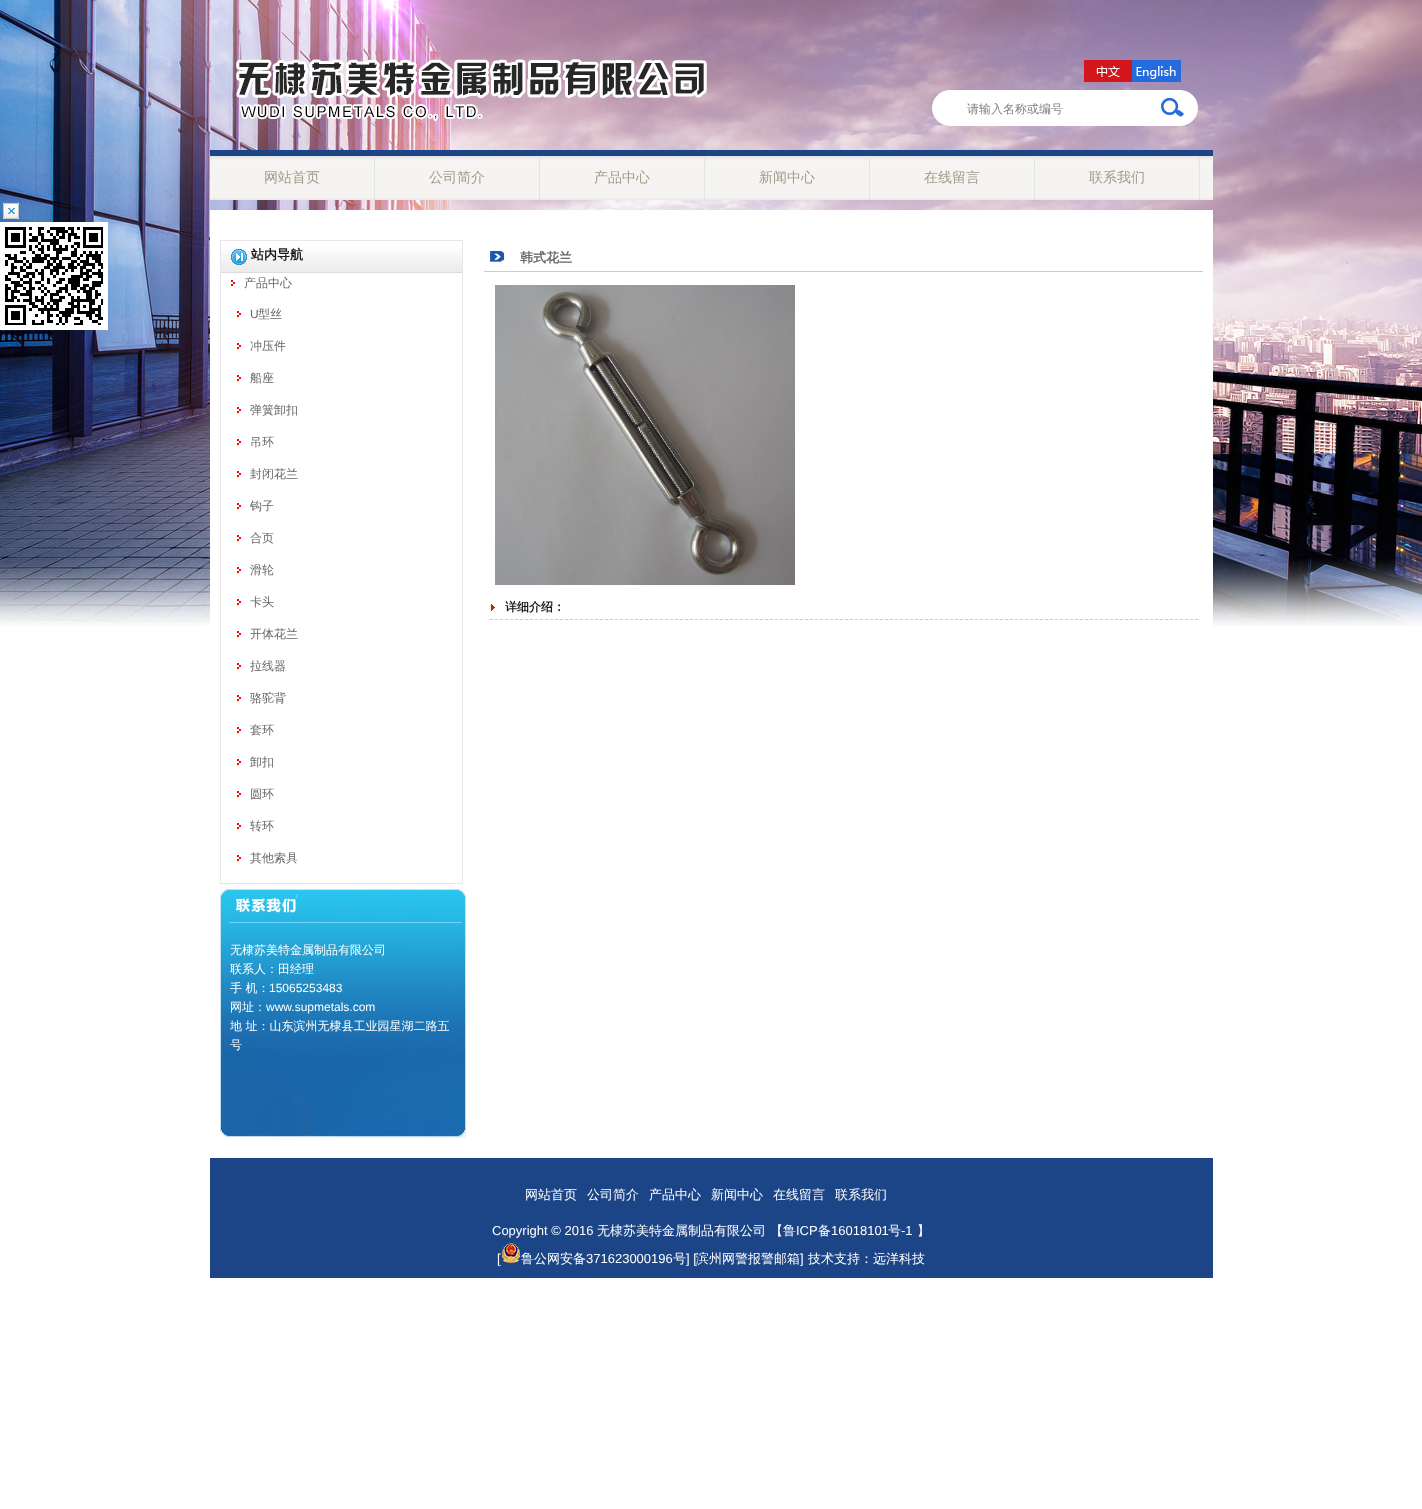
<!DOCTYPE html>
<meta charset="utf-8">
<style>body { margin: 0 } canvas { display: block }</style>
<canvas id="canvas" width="1422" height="1509"></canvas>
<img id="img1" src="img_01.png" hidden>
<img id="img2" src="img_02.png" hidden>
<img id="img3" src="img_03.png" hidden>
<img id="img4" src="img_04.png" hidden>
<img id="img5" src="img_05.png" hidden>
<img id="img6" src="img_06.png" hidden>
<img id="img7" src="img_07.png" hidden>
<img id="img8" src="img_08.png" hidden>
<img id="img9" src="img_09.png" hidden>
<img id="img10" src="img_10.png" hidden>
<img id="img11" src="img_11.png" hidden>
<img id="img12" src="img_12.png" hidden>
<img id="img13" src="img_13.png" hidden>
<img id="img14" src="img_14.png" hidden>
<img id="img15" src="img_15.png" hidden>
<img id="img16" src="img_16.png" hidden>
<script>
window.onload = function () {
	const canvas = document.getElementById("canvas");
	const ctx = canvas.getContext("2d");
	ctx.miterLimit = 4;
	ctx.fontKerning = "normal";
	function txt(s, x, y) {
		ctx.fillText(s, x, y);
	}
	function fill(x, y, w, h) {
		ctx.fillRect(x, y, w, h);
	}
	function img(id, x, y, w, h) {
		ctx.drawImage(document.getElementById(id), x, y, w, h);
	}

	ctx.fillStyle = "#FFFFFF";
	fill(0, 0, 1422, 1509);
	img("img1", 0, 0, 1422, 626);
	img("img2", 236, 59, 471, 63);
	img("img3", 1084, 60, 97, 22);
	img("img4", 932, 90, 266, 36);
	img("img5", 210, 150, 1003, 50);
	img("img6", 374, 157, 1, 43);
	img("img6", 539, 157, 1, 43);
	img("img6", 704, 157, 1, 43);
	img("img6", 869, 157, 1, 43);
	img("img6", 1034, 157, 1, 43);
	img("img6", 1199, 157, 1, 43);
	img("img7", 3, 203, 16, 16);
	img("img8", 0, 222, 108, 108);
	fill(210, 210, 1003, 416);
	img("img9", 221, 249, 241, 24);
	ctx.strokeStyle = "#E7E7E7";
	ctx.strokeRect(220.5, 240.5, 242, 643);
	img("img10", 230, 279, 6, 8);
	img("img10", 236, 310, 6, 8);
	img("img10", 236, 342, 6, 8);
	img("img10", 236, 374, 6, 8);
	img("img10", 236, 406, 6, 8);
	img("img10", 236, 438, 6, 8);
	img("img10", 236, 470, 6, 8);
	img("img10", 236, 502, 6, 8);
	img("img10", 236, 534, 6, 8);
	img("img10", 236, 566, 6, 8);
	img("img10", 236, 598, 6, 8);
	img("img10", 236, 630, 6, 8);
	img("img10", 236, 662, 6, 8);
	img("img10", 236, 694, 6, 8);
	img("img10", 236, 726, 6, 8);
	img("img10", 236, 758, 6, 8);
	img("img10", 236, 790, 6, 8);
	img("img10", 236, 822, 6, 8);
	img("img10", 236, 854, 6, 8);
	img("img11", 220, 887, 246, 39);
	img("img12", 220, 926, 246, 212);
	img("img13", 483, 248, 720, 24);
	img("img14", 495, 285, 300, 300);
	ctx.beginPath();
	ctx.moveTo(490, 619.5);
	ctx.lineTo(1198, 619.5);
	ctx.strokeStyle = "#CCCCCC";
	ctx.setLineDash([3, 2]);
	ctx.stroke();
	img("img15", 491, 604, 4, 7);
	ctx.fillStyle = "#1C4587";
	fill(210, 1158, 1003, 120);
	img("img16", 502, 1243, 18, 20);
	ctx.font = "500 12px WenQuanYi Zen Hei";
	ctx.fillStyle = "#808080";
	txt("请输入名称或编号", 967, 113);
	ctx.font = "500 14px WenQuanYi Zen Hei";
	ctx.fillStyle = "#A29B89";
	txt("网站首页", 264, 182);
	txt("公司简介", 429, 182);
	txt("产品中心", 594, 182);
	txt("新闻中心", 759, 182);
	txt("在线留言", 924, 182);
	txt("联系我们", 1089, 182);
	ctx.font = "bold 13px WenQuanYi Zen Hei";
	ctx.fillStyle = "#191919";
	txt("站内导航", 251, 259);
	ctx.font = "500 12px WenQuanYi Zen Hei";
	ctx.fillStyle = "#666666";
	txt("产品中心", 244, 287);
	ctx.font = "12px Liberation Sans";
	txt("U", 250, 318);
	ctx.font = "500 12px WenQuanYi Zen Hei";
	txt("型丝", 258, 318);
	txt("冲压件", 250, 350);
	txt("船座", 250, 382);
	txt("弹簧卸扣", 250, 414);
	txt("吊环", 250, 446);
	txt("封闭花兰", 250, 478);
	txt("钩子", 250, 510);
	txt("合页", 250, 542);
	txt("滑轮", 250, 574);
	txt("卡头", 250, 606);
	txt("开体花兰", 250, 638);
	txt("拉线器", 250, 670);
	txt("骆驼背", 250, 702);
	txt("套环", 250, 734);
	txt("卸扣", 250, 766);
	txt("圆环", 250, 798);
	txt("转环", 250, 830);
	txt("其他索具", 250, 862);
	ctx.fillStyle = "#FFFFFF";
	txt("无棣苏美特金属制品有限公司", 230, 954);
	txt("联系人：田经理", 230, 973);
	txt("手 机：", 230, 992);
	ctx.font = "12px Liberation Sans";
	txt("15065253483", 269, 992);
	ctx.font = "500 12px WenQuanYi Zen Hei";
	txt("网址：", 230, 1011);
	ctx.font = "12px Liberation Sans";
	txt("www.supmetals.com", 266, 1011);
	ctx.font = "500 12px WenQuanYi Zen Hei";
	txt("地 址：山东滨州无棣县工业园星湖二路五", 230, 1030);
	txt("号", 230, 1049);
	ctx.font = "bold 13px WenQuanYi Zen Hei";
	ctx.fillStyle = "#666666";
	txt("韩式花兰", 520, 262);
	ctx.font = "bold 12px WenQuanYi Zen Hei";
	ctx.fillStyle = "#191919";
	txt("详细介绍：", 505, 611);
	ctx.font = "500 13px WenQuanYi Zen Hei";
	ctx.fillStyle = "#FFFFFF";
	txt("网站首页", 525, 1199);
	txt("公司简介", 587, 1199);
	txt("产品中心", 649, 1199);
	txt("新闻中心", 711, 1199);
	txt("在线留言", 773, 1199);
	txt("联系我们", 835, 1199);
	ctx.font = "13px Liberation Sans";
	txt("Copyright © 2016", 492, 1235);
	ctx.font = "500 13px WenQuanYi Zen Hei";
	txt("无棣苏美特金属制品有限公司 【鲁", 597, 1235);
	ctx.font = "13px Liberation Sans";
	txt("ICP", 796, 1235);
	ctx.font = "500 13px WenQuanYi Zen Hei";
	txt("备", 818, 1235);
	ctx.font = "13px Liberation Sans";
	txt("16018101", 831, 1235);
	ctx.font = "500 13px WenQuanYi Zen Hei";
	txt("号", 888, 1235);
	ctx.font = "13px Liberation Sans";
	txt("-1", 901, 1235);
	ctx.font = "500 13px WenQuanYi Zen Hei";
	txt("】", 917, 1235);
	ctx.font = "13px Liberation Sans";
	txt("[", 497, 1263);
	ctx.font = "500 13px WenQuanYi Zen Hei";
	txt("鲁公网安备", 521, 1263);
	ctx.font = "13px Liberation Sans";
	txt("371623000196", 586, 1263);
	ctx.font = "500 13px WenQuanYi Zen Hei";
	txt("号", 673, 1263);
	ctx.font = "13px Liberation Sans";
	txt("] [", 686, 1263);
	ctx.font = "500 13px WenQuanYi Zen Hei";
	txt("滨州网警报警邮箱", 696, 1263);
	ctx.font = "13px Liberation Sans";
	txt("]", 800, 1263);
	ctx.font = "500 13px WenQuanYi Zen Hei";
	txt("技术支持：远洋科技", 808, 1263);
};
</script>
